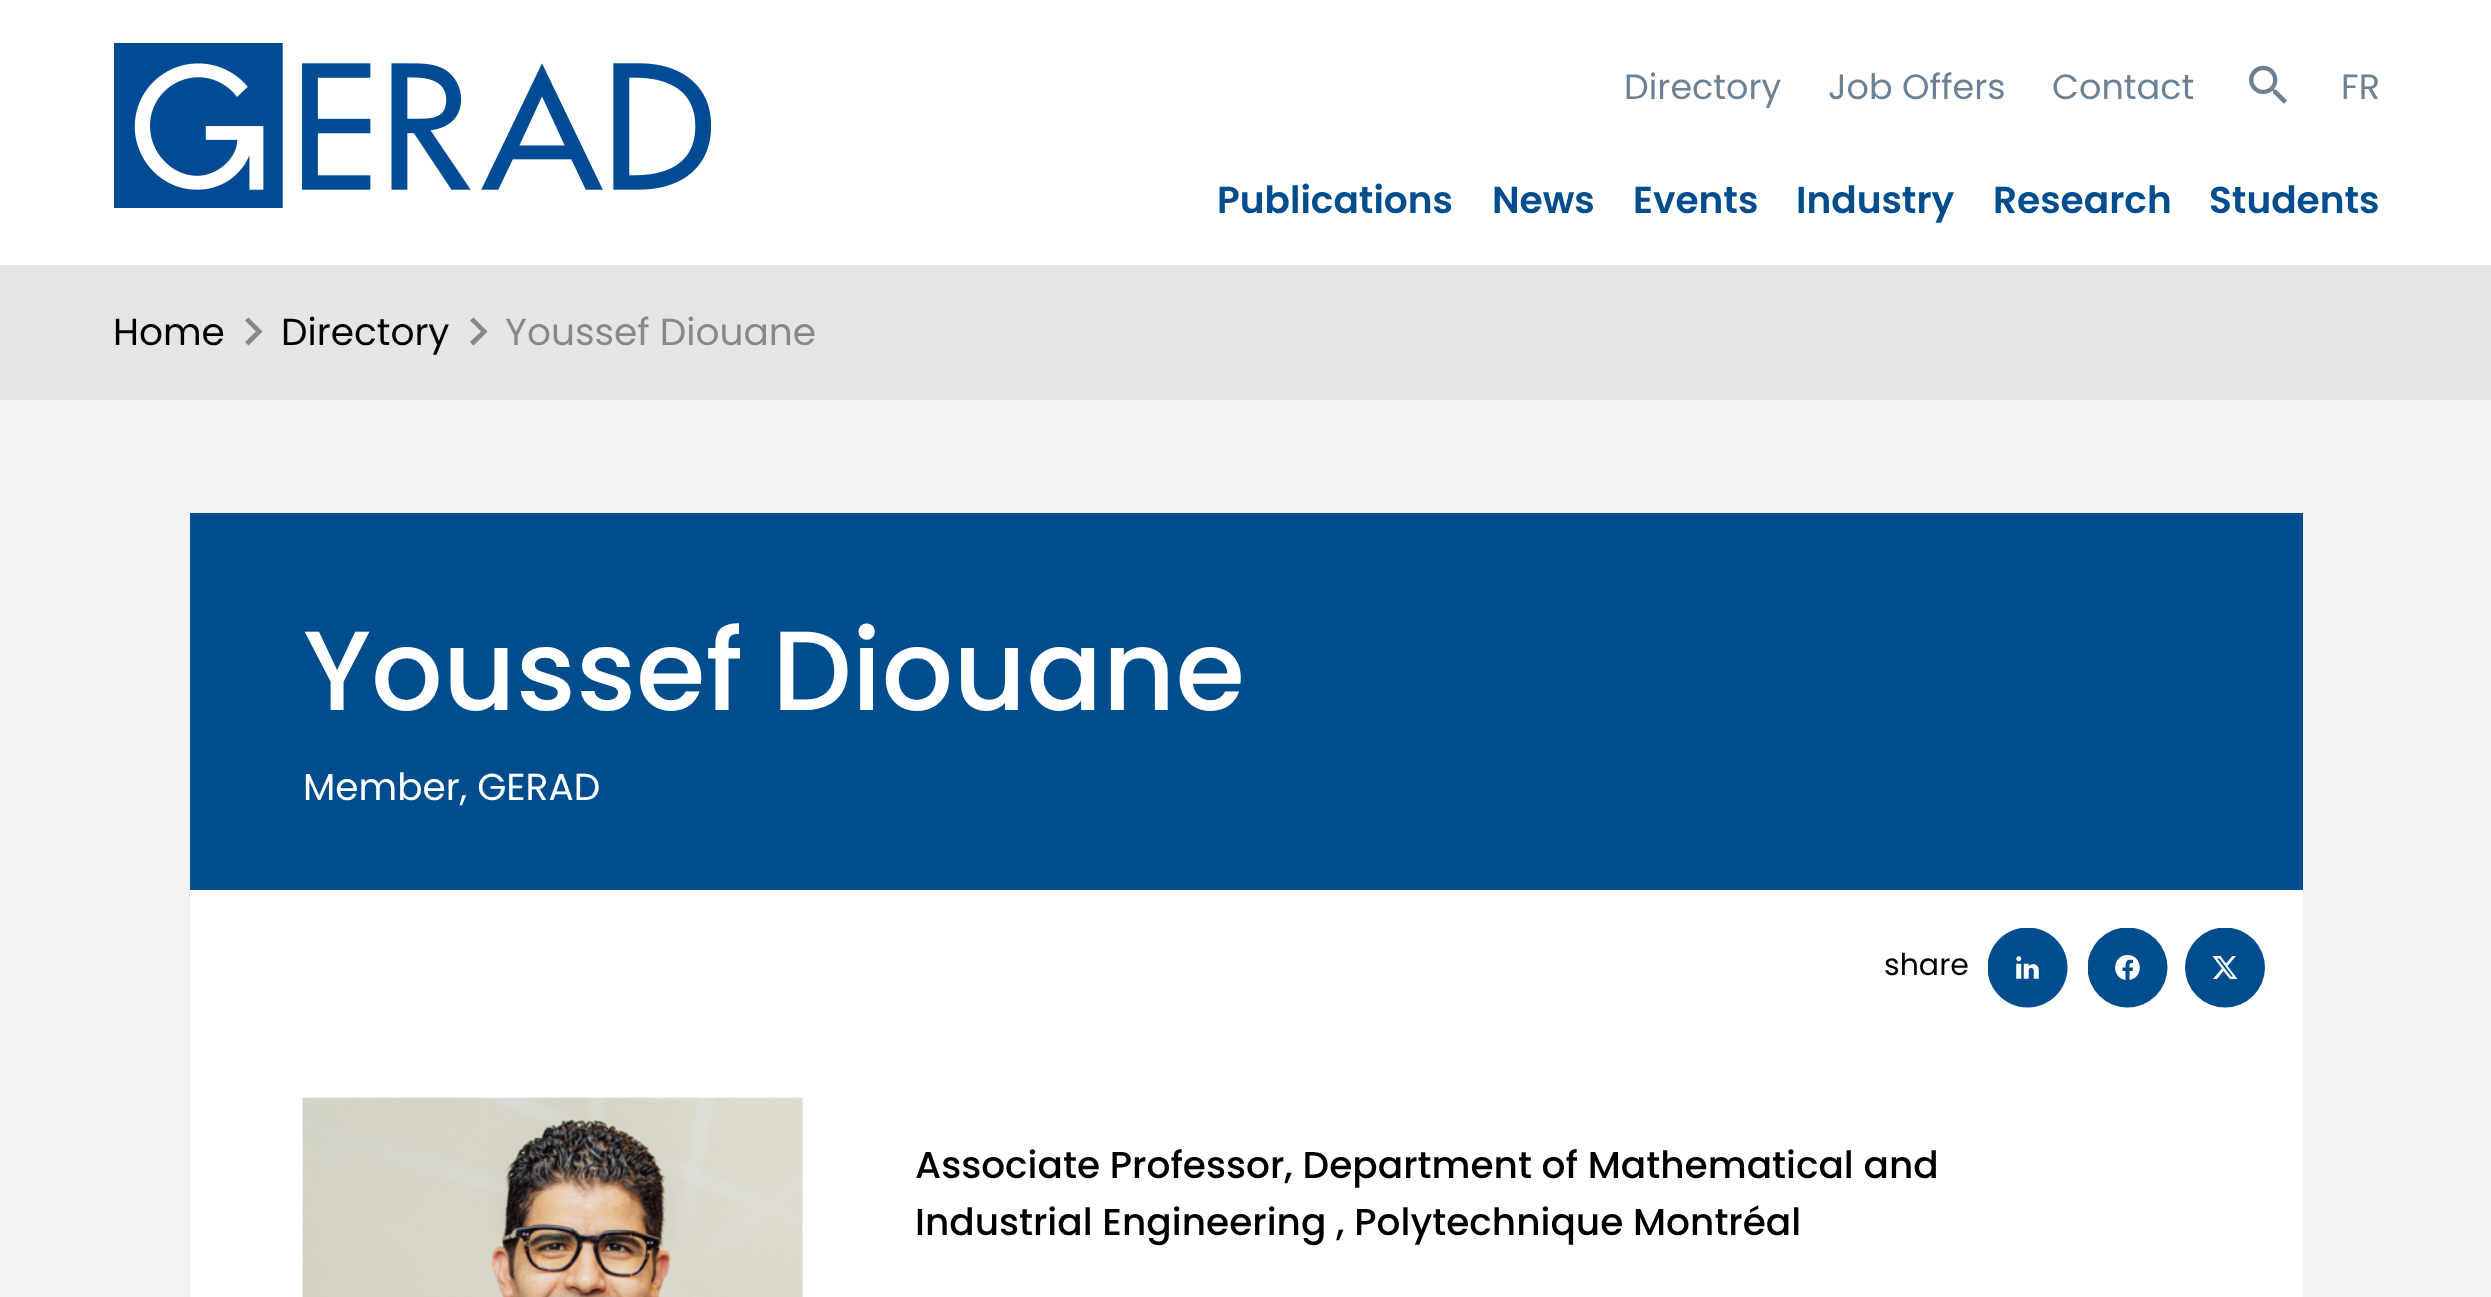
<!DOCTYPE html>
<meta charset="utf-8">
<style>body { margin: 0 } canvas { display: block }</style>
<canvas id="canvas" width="2491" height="1297"></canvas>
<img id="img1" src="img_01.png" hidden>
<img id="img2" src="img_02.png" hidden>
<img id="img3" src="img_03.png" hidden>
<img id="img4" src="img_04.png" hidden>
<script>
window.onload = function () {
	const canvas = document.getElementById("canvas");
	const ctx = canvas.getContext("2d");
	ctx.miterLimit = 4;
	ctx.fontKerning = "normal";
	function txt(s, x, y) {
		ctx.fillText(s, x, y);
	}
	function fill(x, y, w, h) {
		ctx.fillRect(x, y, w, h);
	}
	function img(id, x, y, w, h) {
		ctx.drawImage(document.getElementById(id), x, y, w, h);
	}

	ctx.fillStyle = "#FFFFFF";
	fill(0, 0, 2491, 1297);
	img("img1", 114, 43, 597, 165);
	img("img2", 2249, 65, 38, 39);
	ctx.fillStyle = "#F2F2F2";
	fill(0, 400, 2491, 897);
	ctx.fillStyle = "#E5E5E5";
	fill(0, 265, 2491, 135);
	ctx.fillStyle = "#888888";
	ctx.beginPath();
	ctx.moveTo(245, 342);
	ctx.lineTo(256, 331.5);
	ctx.lineTo(245, 320.5);
	ctx.lineTo(248.5, 317.5);
	ctx.lineTo(262.5, 331.5);
	ctx.lineTo(248.5, 345.5);
	ctx.closePath();
	ctx.fill();
	ctx.beginPath();
	ctx.moveTo(470, 342);
	ctx.lineTo(481, 331.5);
	ctx.lineTo(470, 320.5);
	ctx.lineTo(473.5, 317.5);
	ctx.lineTo(487.5, 331.5);
	ctx.lineTo(473.5, 345.5);
	ctx.closePath();
	ctx.fill();
	ctx.fillStyle = "#004D8D";
	fill(190, 513, 2113, 377);
	ctx.fillStyle = "#FFFFFF";
	fill(190, 890, 2113, 407);
	img("img3", 1988, 928, 80, 80);
	ctx.save();
	ctx.beginPath();
	ctx.rect(2088, 928, 80, 80);
	ctx.clip();
	ctx.fillStyle = "#004D8D";
	ctx.beginPath();
	ctx.arc(2127.5, 967.5, 40, 0, Math.PI * 2);
	ctx.fill();
	ctx.restore();
	ctx.beginPath();
	ctx.moveTo(2127.5, 955);
	ctx.bezierCurveTo(2112.5, 955, 2110.5, 977.5, 2125.5, 980);
	ctx.lineTo(2125.5, 971);
	ctx.lineTo(2122.5, 971);
	ctx.lineTo(2122.5, 967.5);
	ctx.lineTo(2125.5, 967.5);
	ctx.bezierCurveTo(2125.5, 961.5, 2126.5, 959, 2133, 960);
	ctx.lineTo(2133, 963);
	ctx.bezierCurveTo(2129, 963, 2129.5, 964, 2129.5, 967.5);
	ctx.lineTo(2133, 967.5);
	ctx.lineTo(2132.5, 971);
	ctx.lineTo(2129.5, 971);
	ctx.lineTo(2129.5, 980);
	ctx.bezierCurveTo(2144.5, 977.5, 2142.5, 955, 2127.5, 955);
	ctx.closePath();
	ctx.fill();
	ctx.save();
	ctx.beginPath();
	ctx.rect(2185, 928, 80, 80);
	ctx.clip();
	ctx.fillStyle = "#004D8D";
	ctx.beginPath();
	ctx.arc(2225, 967.5, 40, 0, Math.PI * 2);
	ctx.fill();
	ctx.restore();
	ctx.beginPath();
	ctx.moveTo(2232.5, 956);
	ctx.lineTo(2236, 956);
	ctx.lineTo(2227.5, 966);
	ctx.lineTo(2237.5, 979);
	ctx.lineTo(2230, 979);
	ctx.lineTo(2223.5, 971);
	ctx.lineTo(2217, 979);
	ctx.lineTo(2213, 979);
	ctx.lineTo(2222, 968.5);
	ctx.lineTo(2212.5, 956);
	ctx.lineTo(2220.5, 956);
	ctx.lineTo(2226, 963.5);
	ctx.closePath();
	ctx.moveTo(2231, 976.5);
	ctx.lineTo(2233, 976.5);
	ctx.lineTo(2219.5, 958.5);
	ctx.lineTo(2217, 958.5);
	ctx.closePath();
	ctx.fill();
	img("img4", 302, 1097, 501, 200);
	ctx.font = "35px Poppins";
	ctx.fillStyle = "#6C8193";
	txt("Directory", 1624, 99);
	txt("Job Offers", 1828, 99);
	txt("Contact", 2052, 99);
	txt("FR", 2341, 99);
	ctx.font = "600 37.5px Poppins";
	ctx.fillStyle = "#004D8D";
	txt("Publications", 1217, 213);
	txt("News", 1492, 213);
	txt("Events", 1633, 213);
	txt("Industry", 1796, 213);
	txt("Research", 1993, 213);
	txt("Students", 2209, 213);
	ctx.font = "37.5px Poppins";
	ctx.fillStyle = "#000000";
	txt("Home", 113, 345);
	txt("Directory", 281, 345);
	ctx.fillStyle = "#888888";
	txt("Youssef Diouane", 505, 345);
	ctx.font = "500 112.5px Poppins";
	ctx.fillStyle = "#FFFFFF";
	txt("Youssef Diouane", 303, 710);
	ctx.font = "37.5px Poppins";
	txt("Member, GERAD", 303, 800);
	ctx.font = "30px Poppins";
	ctx.fillStyle = "#000000";
	txt("share", 1884, 975);
	ctx.font = "500 37.5px Poppins";
	txt("Associate Professor, Department of Mathematical and", 915, 1178);
	txt("Industrial Engineering , Polytechnique Montréal", 915, 1235);
};
</script>
